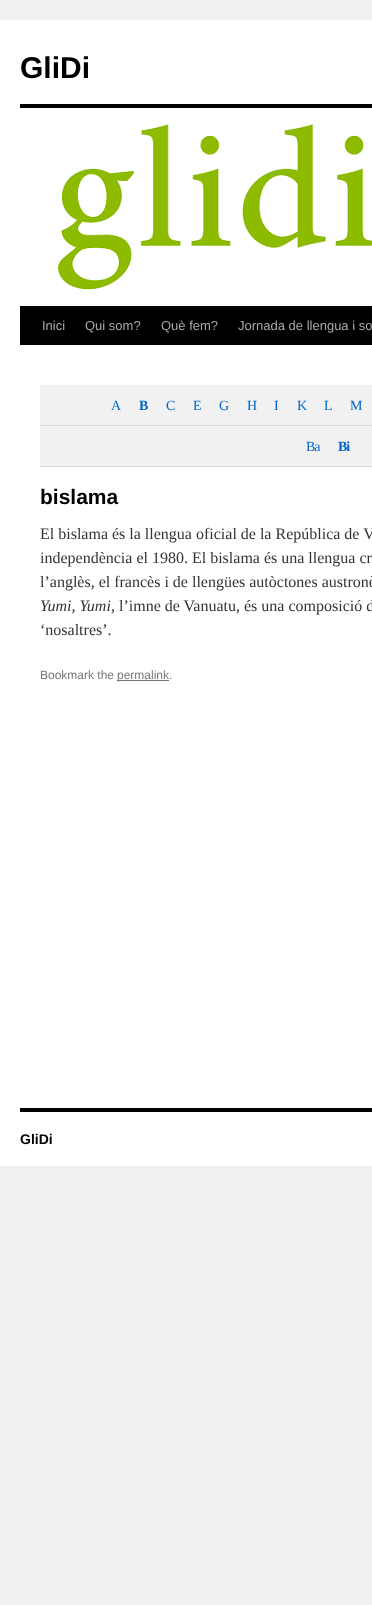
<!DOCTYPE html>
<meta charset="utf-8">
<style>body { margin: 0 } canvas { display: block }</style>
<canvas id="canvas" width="372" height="1605"></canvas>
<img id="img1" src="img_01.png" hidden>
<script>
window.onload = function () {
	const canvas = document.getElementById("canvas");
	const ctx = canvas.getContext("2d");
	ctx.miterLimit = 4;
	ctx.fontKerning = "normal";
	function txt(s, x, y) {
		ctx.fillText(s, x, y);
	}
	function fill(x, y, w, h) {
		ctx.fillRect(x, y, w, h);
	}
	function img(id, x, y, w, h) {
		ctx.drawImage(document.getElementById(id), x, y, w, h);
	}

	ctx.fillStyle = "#F1F1F1";
	fill(0, 0, 372, 1605);
	ctx.fillStyle = "#FFFFFF";
	fill(0, 20, 372, 1146);
	ctx.fillStyle = "#000000";
	fill(20, 104, 352, 4);
	fill(20, 306, 352, 39);
	img("img1", 58, 124, 314, 166);
	ctx.fillStyle = "#F1F1F1";
	fill(40, 385, 332, 40);
	ctx.fillStyle = "#D9D9D9";
	fill(40, 425, 332, 1);
	ctx.fillStyle = "#F1F1F1";
	fill(40, 426, 332, 40);
	ctx.fillStyle = "#D9D9D9";
	fill(40, 466, 332, 1);
	ctx.fillStyle = "#777777";
	fill(117, 680, 52, 1);
	ctx.fillStyle = "#000000";
	fill(20, 1108, 352, 4);
	ctx.font = "bold 30px Liberation Sans";
	txt("GliDi", 20, 78);
	ctx.font = "13px Liberation Sans";
	ctx.fillStyle = "#AAAAAA";
	txt("Inici", 42, 330);
	txt("Qui som?", 85, 330);
	txt("Què fem?", 161, 330);
	txt("Jornada de llengua i so", 238, 330);
	ctx.letterSpacing = "-1px";
	ctx.font = "14px Liberation Serif";
	ctx.fillStyle = "#0066CC";
	txt("A", 111, 410);
	ctx.font = "bold 14px Liberation Serif";
	txt("B", 139, 410);
	ctx.font = "14px Liberation Serif";
	txt("C", 166, 410);
	txt("E", 193, 410);
	txt("G", 219, 410);
	txt("H", 247, 410);
	txt("I", 274, 410);
	txt("K", 297, 410);
	txt("L", 324, 410);
	txt("M", 350, 410);
	txt("Ba", 306, 451);
	ctx.font = "bold 14px Liberation Serif";
	txt("Bi", 338, 451);
	ctx.letterSpacing = "0px";
	ctx.font = "bold 21px Liberation Sans";
	ctx.fillStyle = "#000000";
	txt("bislama", 40, 504);
	ctx.font = "16px Liberation Serif";
	ctx.fillStyle = "#333333";
	txt("El bislama és la llengua oficial de la República de V", 40, 539);
	txt("independència el 1980. El bislama és una llengua cr", 40, 563);
	txt("l’anglès, el francès i de llengües autòctones austronè", 40, 587);
	ctx.font = "italic 16px Liberation Serif";
	txt("Yumi, Yumi", 40, 611);
	ctx.font = "16px Liberation Serif";
	txt(", l’imne de Vanuatu, és una composició d", 111, 611);
	txt("‘nosaltres’.", 40, 635);
	ctx.font = "12px Liberation Sans";
	ctx.fillStyle = "#777777";
	txt("Bookmark the", 40, 679);
	txt("permalink.", 117, 679);
	ctx.font = "bold 14px Liberation Sans";
	ctx.fillStyle = "#000000";
	txt("GliDi", 20, 1144);
};
</script>
